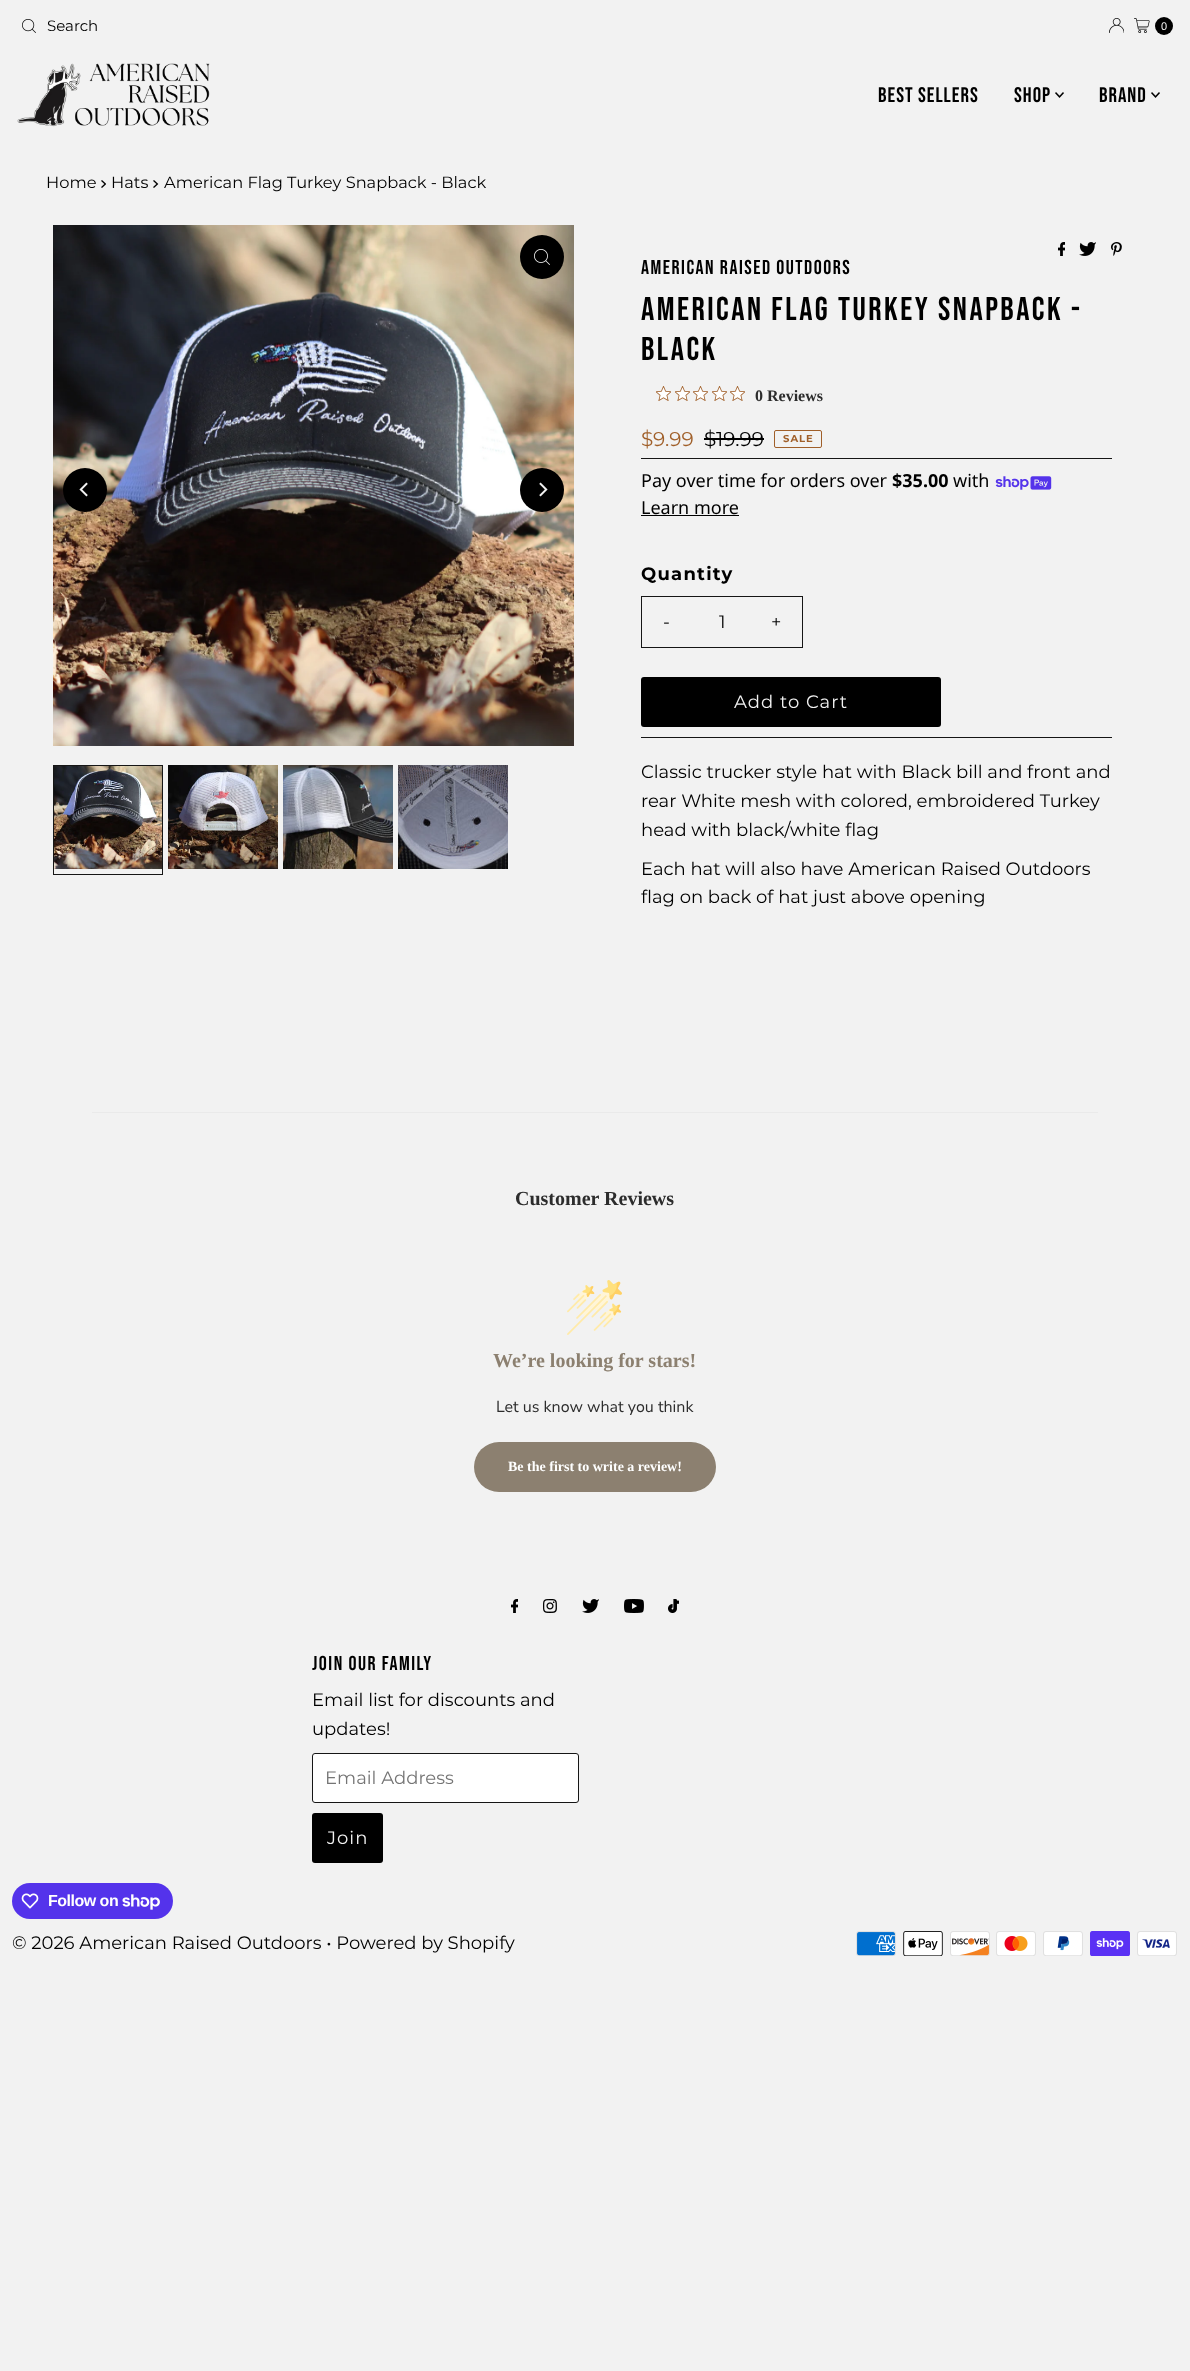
<!DOCTYPE html>
<meta charset="utf-8">
<style>body { margin: 0 } canvas { display: block }</style>
<canvas id="canvas" width="1190" height="2371"></canvas>
<img id="img1" src="img_01.png" hidden>
<img id="img2" src="img_02.png" hidden>
<img id="img3" src="img_03.png" hidden>
<img id="img4" src="img_04.png" hidden>
<img id="img5" src="img_05.png" hidden>
<img id="img6" src="img_06.png" hidden>
<img id="img7" src="img_07.png" hidden>
<img id="img8" src="img_08.png" hidden>
<img id="img9" src="img_09.png" hidden>
<img id="img10" src="img_10.png" hidden>
<img id="img11" src="img_11.png" hidden>
<img id="img12" src="img_12.png" hidden>
<img id="img13" src="img_13.png" hidden>
<img id="img14" src="img_14.png" hidden>
<img id="img15" src="img_15.png" hidden>
<img id="img16" src="img_16.png" hidden>
<img id="img17" src="img_17.png" hidden>
<img id="img18" src="img_18.png" hidden>
<img id="img19" src="img_19.png" hidden>
<img id="img20" src="img_20.png" hidden>
<img id="img21" src="img_21.png" hidden>
<img id="img22" src="img_22.png" hidden>
<img id="img23" src="img_23.png" hidden>
<img id="img24" src="img_24.png" hidden>
<img id="img25" src="img_25.png" hidden>
<img id="img26" src="img_26.png" hidden>
<img id="img27" src="img_27.png" hidden>
<img id="img28" src="img_28.png" hidden>
<img id="img29" src="img_29.png" hidden>
<img id="img30" src="img_30.png" hidden>
<img id="img31" src="img_31.png" hidden>
<img id="img32" src="img_32.png" hidden>
<img id="img33" src="img_33.png" hidden>
<script>
window.onload = function () {
	const canvas = document.getElementById("canvas");
	const ctx = canvas.getContext("2d");
	ctx.miterLimit = 4;
	ctx.fontKerning = "normal";
	function txt(s, x, y) {
		ctx.fillText(s, x, y);
	}
	function fill(x, y, w, h) {
		ctx.fillRect(x, y, w, h);
	}
	function round(x, y, w, h, r) {
		ctx.beginPath();
		ctx.roundRect(x, y, w, h, r);
		ctx.fill();
	}
	function img(id, x, y, w, h) {
		ctx.drawImage(document.getElementById(id), x, y, w, h);
	}

	ctx.fillStyle = "#F2F2F2";
	fill(0, 0, 1190, 2371);
	img("img1", 22, 19, 14, 14);
	img("img2", 1109, 18, 15, 15);
	img("img3", 1134, 18, 16, 15);
	ctx.fillStyle = "#000000";
	ctx.beginPath();
	ctx.arc(1164, 26, 9, 0, Math.PI * 2);
	ctx.fill();
	img("img4", 17, 63, 193, 64);
	img("img5", 1055, 92, 9, 6);
	img("img5", 1151, 92, 9, 6);
	img("img6", 101, 180, 5, 8);
	img("img7", 153, 180, 6, 8);
	img("img8", 53, 225, 521, 521);
	ctx.beginPath();
	ctx.arc(542, 257, 22, 0, Math.PI * 2);
	ctx.fill();
	img("img9", 534, 249, 16, 16);
	ctx.beginPath();
	ctx.arc(85, 490, 22, 0, Math.PI * 2);
	ctx.fill();
	img("img10", 79, 482, 9, 15);
	ctx.beginPath();
	ctx.arc(542, 490, 22, 0, Math.PI * 2);
	ctx.fill();
	img("img11", 539, 482, 9, 15);
	img("img12", 54, 766, 108, 103);
	ctx.strokeStyle = "#161616";
	ctx.strokeRect(53.5, 765.5, 109, 109);
	img("img13", 168, 765, 110, 104);
	img("img14", 283, 765, 110, 104);
	img("img15", 398, 765, 110, 104);
	img("img16", 1058, 242, 7, 14);
	img("img17", 1079, 242, 17, 14);
	img("img18", 1111, 242, 11, 14);
	img("img19", 656, 386, 15, 15);
	img("img19", 675, 386, 15, 15);
	img("img19", 693, 386, 15, 15);
	img("img19", 712, 386, 15, 15);
	img("img19", 730, 386, 15, 15);
	ctx.fillStyle = "#161616";
	fill(641, 458, 471, 1);
	ctx.fillStyle = "#000000";
	fill(704, 438, 60, 2);
	ctx.beginPath();
	ctx.roundRect(774.5, 430.5, 47, 17, 1.5);
	ctx.strokeStyle = "#A05F29";
	ctx.stroke();
	img("img20", 995, 476, 57, 14);
	fill(641, 515, 98, 1);
	ctx.strokeStyle = "#161616";
	ctx.strokeRect(641.5, 596.5, 161, 51);
	ctx.fillStyle = "#161616";
	fill(641, 737, 471, 1);
	ctx.fillStyle = "#000000";
	round(641, 677, 300, 50, 3);
	ctx.fillStyle = "#EAEAEA";
	fill(92, 1112, 1006, 1);
	img("img21", 567, 1280, 55, 55);
	ctx.fillStyle = "#8C8070";
	round(474, 1442, 242, 50, 25);
	img("img16", 511, 1599, 7, 14);
	img("img22", 543, 1599, 14, 14);
	img("img17", 582, 1599, 17, 14);
	img("img23", 624, 1599, 20, 14);
	img("img24", 668, 1599, 11, 14);
	ctx.fillStyle = "#FFFFFF";
	ctx.beginPath();
	ctx.roundRect(312.5, 1753.5, 266, 49, 2.5);
	ctx.fill();
	ctx.stroke();
	ctx.fillStyle = "#000000";
	round(312, 1813, 71, 50, 3);
	ctx.fillStyle = "#5433EB";
	round(12, 1883, 161, 36, 18);
	img("img25", 21, 1893, 18, 16);
	img("img26", 122, 1894, 38, 16);
	img("img27", 856, 1931, 40, 25);
	img("img28", 903, 1931, 40, 25);
	img("img29", 950, 1931, 40, 25);
	img("img30", 996, 1931, 40, 25);
	img("img31", 1043, 1931, 40, 25);
	img("img32", 1090, 1931, 40, 25);
	img("img33", 1137, 1931, 40, 25);
	ctx.font = "15px Montserrat";
	ctx.fillStyle = "#000000";
	txt("Search", 47, 31);
	ctx.font = "11px Liberation Sans";
	ctx.fillStyle = "#F2F2F2";
	txt("0", 1161, 30);
	ctx.letterSpacing = "1px";
	ctx.font = "21px Bebas Neue";
	ctx.fillStyle = "#000000";
	txt("Best Sellers", 878, 102);
	txt("Shop", 1014, 102);
	txt("Brand", 1099, 102);
	ctx.letterSpacing = "0px";
	ctx.font = "16.25px Montserrat";
	txt("Home", 46, 188);
	txt("Hats", 111, 188);
	txt("American Flag Turkey Snapback - Black", 164, 188);
	ctx.letterSpacing = "1.5px";
	ctx.font = "20px Bebas Neue";
	txt("American Raised Outdoors", 641, 274);
	ctx.letterSpacing = "2.5px";
	ctx.font = "33px Bebas Neue";
	txt("American Flag Turkey Snapback -", 641, 320);
	txt("Black", 641, 360);
	ctx.letterSpacing = "0px";
	ctx.font = "bold 16px Liberation Serif";
	ctx.fillStyle = "#2C2C2C";
	txt("0 Reviews", 755, 401);
	ctx.font = "20px Montserrat";
	ctx.fillStyle = "#A05F29";
	txt("$9.99", 641, 446);
	ctx.fillStyle = "#000000";
	txt("$19.99", 704, 446);
	ctx.letterSpacing = "1px";
	ctx.font = "bold 10px Montserrat";
	ctx.fillStyle = "#A05F29";
	txt("SALE", 783, 442);
	ctx.letterSpacing = "0px";
	ctx.font = "18px Noto Sans";
	ctx.fillStyle = "#000000";
	txt("Pay over time for orders over", 641, 487);
	ctx.font = "bold 18px Noto Sans";
	txt("$35.00", 892, 487);
	ctx.font = "18px Noto Sans";
	txt("with", 953, 487);
	txt("Learn more", 641, 514);
	ctx.letterSpacing = "1.25px";
	ctx.font = "bold 18px Montserrat";
	txt("Quantity", 641, 580);
	ctx.letterSpacing = "1px";
	ctx.font = "18px Montserrat";
	txt("-", 663, 628);
	ctx.letterSpacing = "0px";
	txt("1", 719, 628);
	ctx.letterSpacing = "1px";
	txt("+", 771, 628);
	ctx.fillStyle = "#F2F2F2";
	txt("Add to Cart", 734, 708);
	ctx.letterSpacing = "0px";
	ctx.fillStyle = "#000000";
	txt("Classic trucker style hat with Black bill and front and", 641, 778);
	txt("rear White mesh with colored, embroidered Turkey", 641, 807);
	txt("head with black/white flag", 641, 836);
	txt("Each hat will also have American Raised Outdoors", 641, 875);
	txt("flag on back of hat just above opening", 641, 903);
	ctx.font = "bold 20px Liberation Serif";
	ctx.fillStyle = "#2C2C2C";
	txt("Customer Reviews", 515, 1205);
	ctx.fillStyle = "#8C8070";
	txt("We’re looking for stars!", 493, 1367);
	ctx.font = "200 16px Nunito Sans";
	ctx.fillStyle = "#2C2C2C";
	txt("Let us know what you think", 496, 1412);
	ctx.font = "bold 14px Liberation Serif";
	ctx.fillStyle = "#FFFFFF";
	txt("Be the first to write a review!", 508, 1471);
	ctx.letterSpacing = "1.5px";
	ctx.font = "20px Bebas Neue";
	ctx.fillStyle = "#000000";
	txt("JOIN OUR FAMILY", 312, 1670);
	ctx.letterSpacing = "0px";
	ctx.font = "18px Montserrat";
	txt("Email list for discounts and", 312, 1706);
	txt("updates!", 312, 1735);
	ctx.fillStyle = "#757575";
	txt("Email Address", 325, 1784);
	ctx.letterSpacing = "1px";
	ctx.fillStyle = "#F2F2F2";
	txt("Join", 327, 1844);
	ctx.letterSpacing = "-0.5px";
	ctx.font = "bold 16px Liberation Sans";
	ctx.fillStyle = "#FFFFFF";
	txt("Follow on", 48, 1906);
	ctx.letterSpacing = "0px";
	ctx.font = "18px Montserrat";
	ctx.fillStyle = "#000000";
	txt("© 2026 American Raised Outdoors • Powered by Shopify", 12, 1949);
};
</script>
